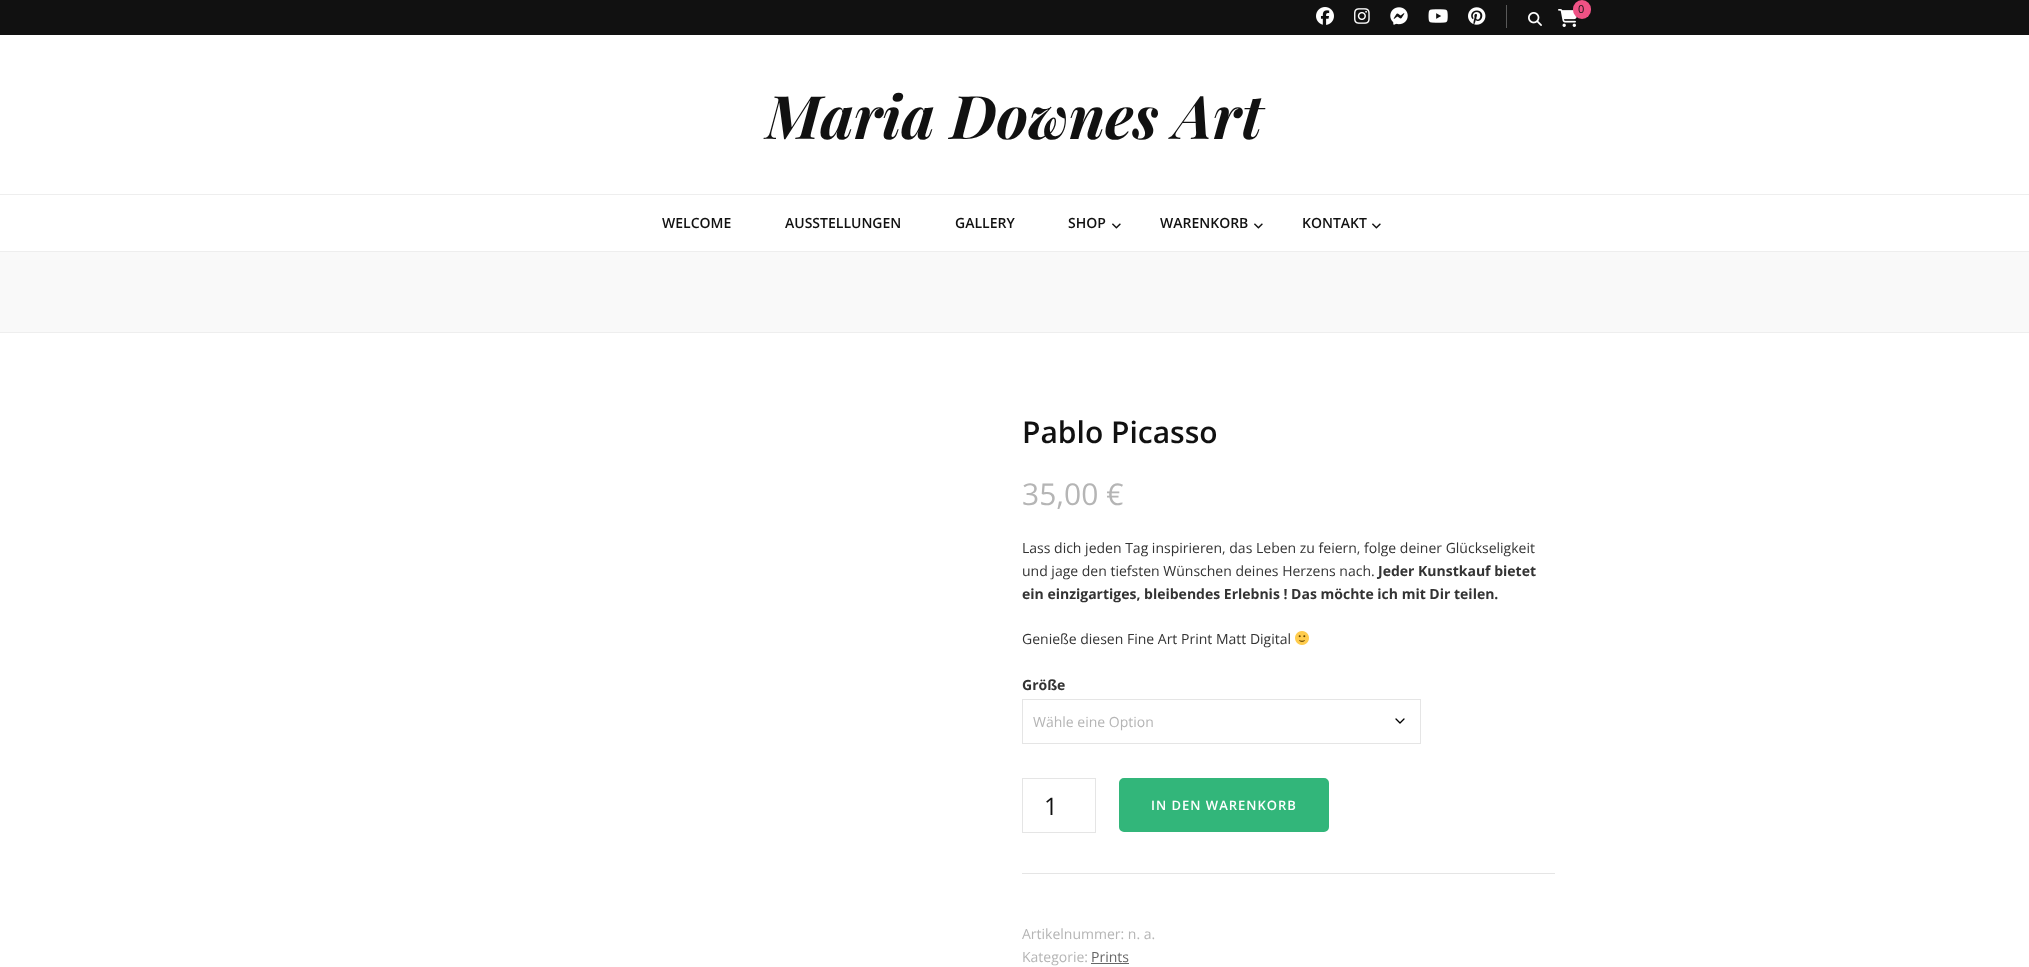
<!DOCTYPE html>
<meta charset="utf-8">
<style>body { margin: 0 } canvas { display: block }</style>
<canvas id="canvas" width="2029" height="967"></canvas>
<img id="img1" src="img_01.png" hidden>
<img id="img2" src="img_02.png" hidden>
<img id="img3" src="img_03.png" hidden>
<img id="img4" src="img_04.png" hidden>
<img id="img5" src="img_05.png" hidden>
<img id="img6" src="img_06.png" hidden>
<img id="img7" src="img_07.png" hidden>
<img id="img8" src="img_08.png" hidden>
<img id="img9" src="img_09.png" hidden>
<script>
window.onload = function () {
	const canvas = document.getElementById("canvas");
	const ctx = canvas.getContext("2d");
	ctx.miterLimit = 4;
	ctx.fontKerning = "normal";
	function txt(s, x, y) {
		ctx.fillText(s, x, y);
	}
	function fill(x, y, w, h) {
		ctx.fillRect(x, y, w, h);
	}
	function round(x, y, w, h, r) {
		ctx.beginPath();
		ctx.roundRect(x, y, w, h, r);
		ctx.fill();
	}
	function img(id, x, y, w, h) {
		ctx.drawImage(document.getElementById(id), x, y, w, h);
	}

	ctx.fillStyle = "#FFFFFF";
	fill(0, 0, 2029, 967);
	ctx.fillStyle = "#111111";
	fill(0, 0, 2029, 35);
	ctx.fillStyle = "#595959";
	fill(1506, 5, 1, 23);
	img("img1", 1316, 7, 18, 18);
	img("img2", 1354, 8, 16, 16);
	img("img3", 1390, 7, 18, 18);
	img("img4", 1428, 9, 20, 14);
	img("img5", 1468, 7, 18, 18);
	img("img6", 1558, 9, 19, 18);
	ctx.fillStyle = "#EF5285";
	round(1573, 0, 18, 19, 9);
	img("img7", 1528, 12, 14, 14);
	ctx.fillStyle = "#EEEEEE";
	fill(0, 194, 2029, 1);
	fill(0, 251, 2029, 1);
	img("img8", 1112, 223, 9, 6);
	img("img8", 1254, 223, 9, 6);
	img("img8", 1372, 223, 9, 6);
	ctx.fillStyle = "#F9F9F9";
	fill(0, 252, 2029, 80);
	ctx.fillStyle = "#EEEEEE";
	fill(0, 332, 2029, 1);
	img("img9", 1295, 631, 14, 14);
	ctx.fillStyle = "#E5E5E5";
	fill(1022, 873, 533, 1);
	ctx.beginPath();
	ctx.moveTo(1396, 719);
	ctx.lineTo(1400, 723);
	ctx.lineTo(1404, 719);
	ctx.strokeStyle = "#000000";
	ctx.lineWidth = 1.3;
	ctx.lineCap = "round";
	ctx.lineJoin = "round";
	ctx.stroke();
	ctx.strokeStyle = "#E5E5E5";
	ctx.lineWidth = 1;
	ctx.lineJoin = "miter";
	ctx.strokeRect(1022.5, 699.5, 398, 44);
	ctx.strokeRect(1022.5, 778.5, 73, 54);
	ctx.fillStyle = "#32B67A";
	ctx.beginPath();
	ctx.roundRect(1120, 779, 208, 52, 4);
	ctx.fill();
	ctx.strokeStyle = "#32B67A";
	ctx.lineWidth = 2;
	ctx.stroke();
	ctx.fillStyle = "#666666";
	fill(1091, 963, 38, 1);
	ctx.font = "11px Open Sans";
	ctx.fillStyle = "#111111";
	txt("0", 1578, 13);
	ctx.font = "italic bold 60px Playfair Display";
	txt("Maria Downes Art", 766, 139);
	ctx.font = "600 14px Open Sans";
	txt("WELCOME", 662, 228);
	txt("AUSSTELLUNGEN", 785, 228);
	txt("GALLERY", 955, 228);
	txt("SHOP", 1068, 228);
	txt("WARENKORB", 1160, 228);
	txt("KONTAKT", 1302, 228);
	ctx.font = "600 30px Open Sans";
	txt("Pablo Picasso", 1022, 443);
	ctx.font = "30px Open Sans";
	ctx.fillStyle = "#B5B5B5";
	txt("35,00 €", 1022, 505);
	ctx.font = "14px Open Sans";
	ctx.fillStyle = "#333333";
	txt("Lass dich jeden Tag inspirieren, das Leben zu feiern, folge deiner Glückseligkeit", 1022, 553);
	txt("und jage den tiefsten Wünschen deines Herzens nach.", 1022, 576);
	ctx.font = "bold 14px Open Sans";
	txt("Jeder Kunstkauf bietet", 1378, 576);
	txt("ein einzigartiges, bleibendes Erlebnis ! Das möchte ich mit Dir teilen.", 1022, 599);
	ctx.font = "14px Open Sans";
	txt("Genieße diesen Fine Art Print Matt Digital", 1022, 644);
	ctx.font = "bold 14px Open Sans";
	txt("Größe", 1022, 690);
	ctx.font = "14px Open Sans";
	ctx.fillStyle = "#B5B5B5";
	txt("Wähle eine Option", 1033, 727);
	ctx.font = "24px Open Sans";
	ctx.fillStyle = "#111111";
	txt("1", 1044, 815);
	ctx.letterSpacing = "1px";
	ctx.font = "600 13px Open Sans";
	ctx.fillStyle = "#FFFFFF";
	txt("IN DEN WARENKORB", 1151, 810);
	ctx.letterSpacing = "0px";
	ctx.font = "14px Open Sans";
	ctx.fillStyle = "#B5B5B5";
	txt("Artikelnummer: n. a.", 1022, 939);
	txt("Kategorie:", 1022, 962);
	ctx.fillStyle = "#666666";
	txt("Prints", 1091, 962);
};
</script>
